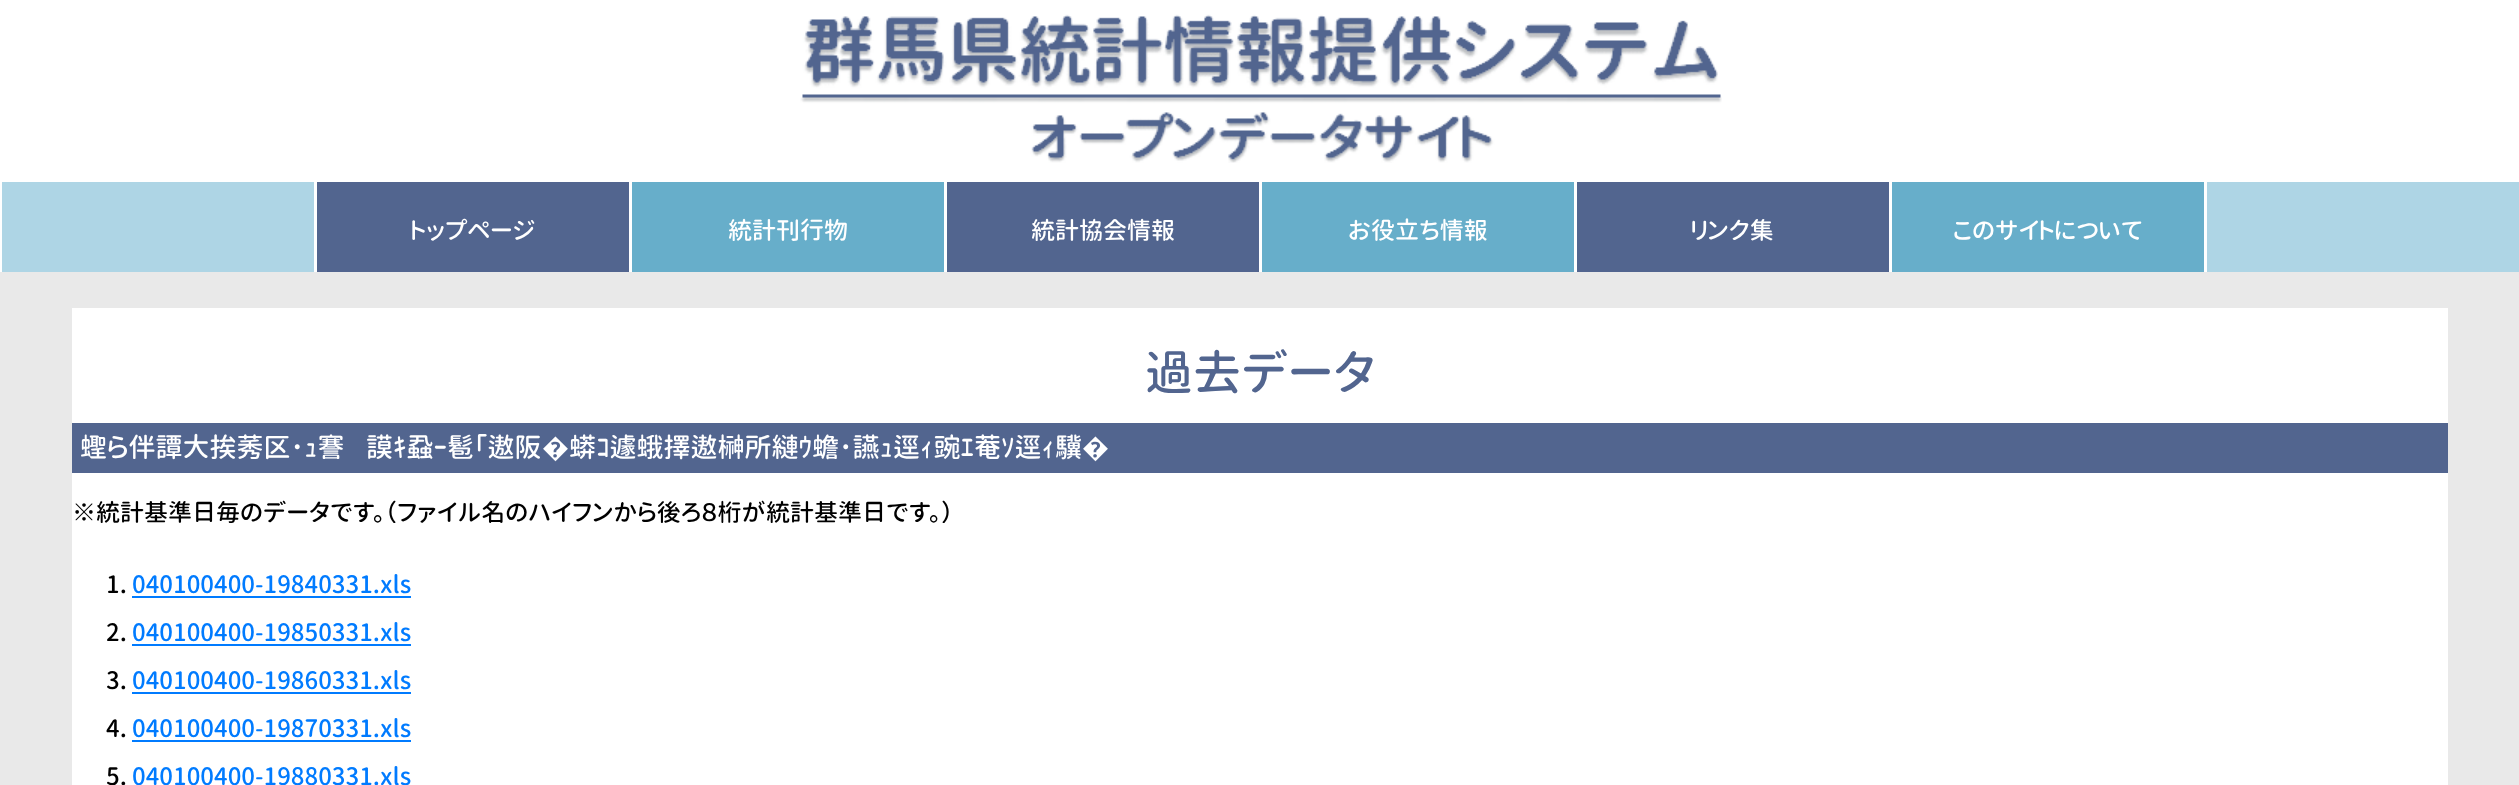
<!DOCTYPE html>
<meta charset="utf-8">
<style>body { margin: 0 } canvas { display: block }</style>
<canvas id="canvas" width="2519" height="785"></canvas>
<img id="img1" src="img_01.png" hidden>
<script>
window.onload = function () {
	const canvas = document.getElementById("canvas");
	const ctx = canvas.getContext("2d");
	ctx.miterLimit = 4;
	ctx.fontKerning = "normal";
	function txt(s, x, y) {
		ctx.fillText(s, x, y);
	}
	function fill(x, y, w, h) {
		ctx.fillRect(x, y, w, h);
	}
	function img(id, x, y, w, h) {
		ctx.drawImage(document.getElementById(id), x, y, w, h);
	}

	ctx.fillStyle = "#E9E9E9";
	fill(0, 0, 2519, 785);
	ctx.fillStyle = "#FFFFFF";
	fill(0, 0, 2519, 182);
	img("img1", 800, 14, 922, 149);
	ctx.fillStyle = "#AED5E5";
	fill(2, 182, 312, 90);
	ctx.fillStyle = "#FFFFFF";
	fill(314, 182, 3, 90);
	fill(0, 182, 2, 90);
	ctx.fillStyle = "#52658F";
	fill(317, 182, 312, 90);
	ctx.fillStyle = "#FFFFFF";
	fill(629, 182, 3, 90);
	ctx.fillStyle = "#67AECA";
	fill(632, 182, 312, 90);
	ctx.fillStyle = "#FFFFFF";
	fill(944, 182, 3, 90);
	ctx.fillStyle = "#52658F";
	fill(947, 182, 312, 90);
	ctx.fillStyle = "#FFFFFF";
	fill(1259, 182, 3, 90);
	ctx.fillStyle = "#67AECA";
	fill(1262, 182, 312, 90);
	ctx.fillStyle = "#FFFFFF";
	fill(1574, 182, 3, 90);
	ctx.fillStyle = "#52658F";
	fill(1577, 182, 312, 90);
	ctx.fillStyle = "#FFFFFF";
	fill(1889, 182, 3, 90);
	ctx.fillStyle = "#67AECA";
	fill(1892, 182, 312, 90);
	ctx.fillStyle = "#FFFFFF";
	fill(2204, 182, 3, 90);
	ctx.fillStyle = "#AED5E5";
	fill(2207, 182, 312, 90);
	ctx.fillStyle = "#FFFFFF";
	fill(72, 308, 2376, 477);
	ctx.fillStyle = "#52658F";
	fill(72, 423, 2376, 50);
	ctx.fillStyle = "#007BFF";
	fill(132, 596, 279, 2);
	fill(132, 644, 279, 2);
	fill(132, 692, 279, 2);
	fill(132, 740, 279, 2);
	ctx.font = "500 24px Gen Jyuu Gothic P";
	ctx.fillStyle = "#FFFFFF";
	txt("トップページ", 411, 239);
	txt("統計刊行物", 728, 239);
	txt("統計協会情報", 1031, 239);
	txt("お役立ち情報", 1348, 239);
	txt("リンク集", 1691, 239);
	txt("このサイトについて", 1953, 239);
	ctx.font = "500 48px Gen Jyuu Gothic P";
	ctx.fillStyle = "#52658F";
	txt("過去データ", 1145, 390);
	ctx.font = "500 27px Gen Jyuu Gothic P";
	ctx.fillStyle = "#FFFFFF";
	txt("蟶ら伴譚大挨莠区･ｭ謇", 80, 457);
	txt("謨ｷ蝨ｰ髱｢遨阪", 366, 457);
	ctx.font = "500 27px Noto Sans";
	txt("�", 542, 457);
	ctx.font = "500 27px Gen Jyuu Gothic P";
	txt("蟒ｺ遽蛾擇遨榊所縺ｳ蟾･讌ｭ逕ｨ豌ｴ菴ｿ逕ｨ驥", 569, 457);
	ctx.font = "500 27px Noto Sans";
	txt("�", 1082, 457);
	ctx.font = "500 24px Gen Jyuu Gothic P";
	ctx.fillStyle = "#000000";
	txt("※統計基準日毎のデータです。（ファイル名のハイフンから後ろ８桁が統計基準日です。）", 72, 521);
	txt("1.", 106, 593);
	ctx.fillStyle = "#007BFF";
	txt("040100400-19840331.xls", 132, 593);
	ctx.fillStyle = "#000000";
	txt("2.", 106, 641);
	ctx.fillStyle = "#007BFF";
	txt("040100400-19850331.xls", 132, 641);
	ctx.fillStyle = "#000000";
	txt("3.", 106, 689);
	ctx.fillStyle = "#007BFF";
	txt("040100400-19860331.xls", 132, 689);
	ctx.fillStyle = "#000000";
	txt("4.", 106, 737);
	ctx.fillStyle = "#007BFF";
	txt("040100400-19870331.xls", 132, 737);
	ctx.fillStyle = "#000000";
	txt("5.", 106, 785);
	ctx.fillStyle = "#007BFF";
	txt("040100400-19880331.xls", 132, 785);
};
</script>
